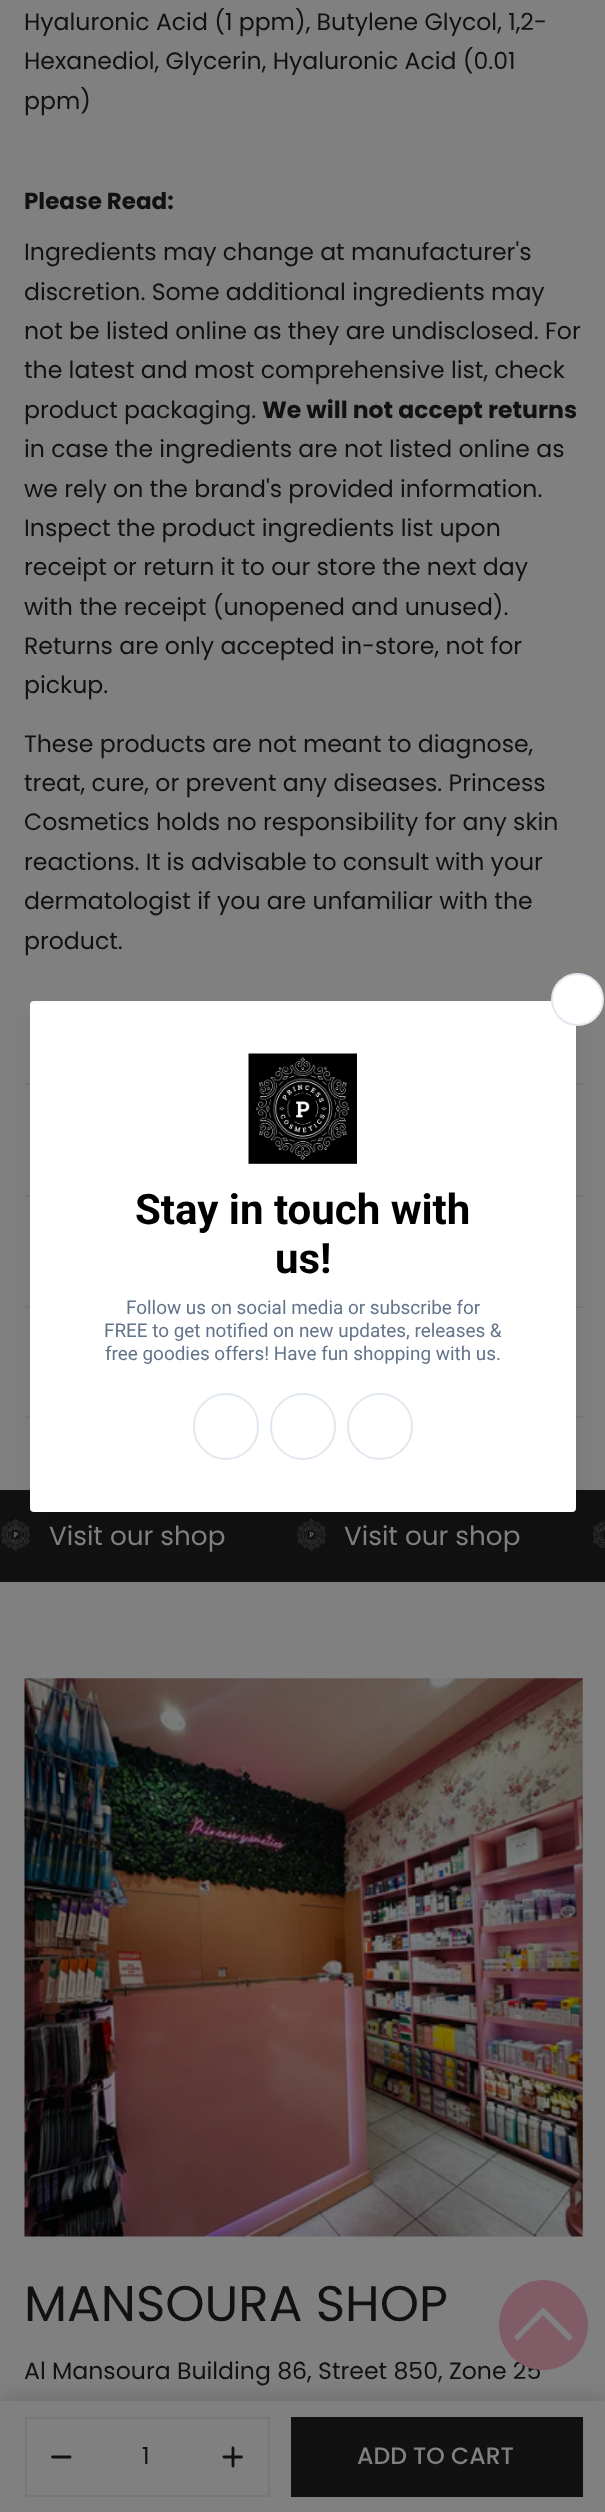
<!DOCTYPE html>
<meta charset="utf-8">
<style>body { margin: 0 } canvas { display: block }</style>
<canvas id="canvas" width="605" height="2512"></canvas>
<img id="img1" src="img_01.png" hidden>
<img id="img2" src="img_02.png" hidden>
<img id="img3" src="img_03.png" hidden>
<img id="img4" src="img_04.png" hidden>
<img id="img5" src="img_05.png" hidden>
<script>
window.onload = function () {
	const canvas = document.getElementById("canvas");
	const ctx = canvas.getContext("2d");
	ctx.miterLimit = 4;
	ctx.fontKerning = "normal";
	function txt(s, x, y) {
		ctx.fillText(s, x, y);
	}
	function fill(x, y, w, h) {
		ctx.fillRect(x, y, w, h);
	}
	function round(x, y, w, h, r) {
		ctx.beginPath();
		ctx.roundRect(x, y, w, h, r);
		ctx.fill();
	}
	function img(id, x, y, w, h) {
		ctx.drawImage(document.getElementById(id), x, y, w, h);
	}

	ctx.fillStyle = "#808080";
	fill(0, 0, 605, 2512);
	ctx.fillStyle = "#777777";
	fill(25, 1083, 558, 2);
	fill(25, 1195, 558, 2);
	fill(25, 1306, 558, 2);
	fill(25, 1416, 558, 2);
	ctx.fillStyle = "#111111";
	fill(0, 1490, 605, 92);
	img("img1", 1, 1519, 30, 32);
	img("img2", 297, 1519, 30, 32);
	img("img3", 592, 1521, 13, 28);
	img("img4", 24, 1678, 559, 559);
	ctx.fillStyle = "rgba(0, 0, 0, 0.08)";
	ctx.filter = "blur(9px)";
	ctx.beginPath();
	ctx.rect(-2, 2398, 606, 112);
	ctx.fill();
	ctx.filter = "none";
	ctx.fillStyle = "rgba(0, 0, 0, 0.09)";
	ctx.filter = "blur(9px)";
	ctx.beginPath();
	ctx.rect(0, 2401, 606, 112);
	ctx.fill();
	ctx.filter = "none";
	ctx.fillStyle = "#808080";
	fill(0, 2401, 605, 111);
	ctx.strokeStyle = "#777777";
	ctx.lineWidth = 2;
	ctx.strokeRect(26, 2418, 243, 78);
	ctx.beginPath();
	ctx.moveTo(52.5, 2457);
	ctx.lineTo(70, 2457);
	ctx.strokeStyle = "#111111";
	ctx.lineWidth = 2.8;
	ctx.lineCap = "round";
	ctx.lineJoin = "round";
	ctx.stroke();
	ctx.beginPath();
	ctx.moveTo(224, 2457);
	ctx.lineTo(241.5, 2457);
	ctx.moveTo(233, 2448);
	ctx.lineTo(233, 2466);
	ctx.stroke();
	ctx.fillStyle = "#111111";
	fill(291, 2417, 292, 80);
	ctx.fillStyle = "rgba(0, 0, 0, 0.1)";
	ctx.filter = "blur(13px)";
	ctx.beginPath();
	ctx.rect(35, 1024, 536, 500);
	ctx.fill();
	ctx.filter = "none";
	ctx.save();
	ctx.beginPath();
	ctx.rect(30, 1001, 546, 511);
	ctx.clip();
	ctx.fillStyle = "rgba(0, 0, 0, 0.12)";
	ctx.filter = "blur(17.5px)";
	ctx.beginPath();
	ctx.rect(35, 1006, 536, 501);
	ctx.fill();
	ctx.filter = "none";
	ctx.restore();
	ctx.fillStyle = "#FFFFFF";
	round(30, 1001, 546, 511, 4);
	ctx.beginPath();
	ctx.arc(577.5, 999.5, 25.5, 0, Math.PI * 2);
	ctx.fill();
	ctx.strokeStyle = "#E2E8F0";
	ctx.lineWidth = 2;
	ctx.stroke();
	img("img5", 248, 1053, 109, 111);
	ctx.beginPath();
	ctx.roundRect(194, 1394, 64, 65, 32);
	ctx.lineJoin = "miter";
	ctx.stroke();
	ctx.beginPath();
	ctx.roundRect(271, 1394, 64, 65, 32);
	ctx.stroke();
	ctx.beginPath();
	ctx.roundRect(348, 1394, 64, 65, 32);
	ctx.stroke();
	ctx.font = "23.6px Poppins";
	ctx.fillStyle = "#111111";
	txt("Hyaluronic Acid (1 ppm), Butylene Glycol, 1,2-", 24, 30);
	txt("Hexanediol, Glycerin, Hyaluronic Acid (0.01", 24, 69);
	txt("ppm)", 24, 109);
	ctx.font = "bold 23px Poppins";
	txt("Please Read:", 24, 209);
	ctx.font = "23.6px Poppins";
	txt("Ingredients may change at manufacturer's", 24, 260);
	txt("discretion. Some additional ingredients may", 24, 300);
	txt("not be listed online as they are undisclosed. For", 24, 339);
	txt("the latest and most comprehensive list, check", 24, 378);
	txt("product packaging.", 24, 418);
	ctx.font = "bold 23.6px Poppins";
	txt("We will not accept returns", 262, 418);
	ctx.font = "23.6px Poppins";
	txt("in case the ingredients are not listed online as", 24, 457);
	txt("we rely on the brand's provided information.", 24, 497);
	txt("Inspect the product ingredients list upon", 24, 536);
	txt("receipt or return it to our store the next day", 24, 575);
	txt("with the receipt (unopened and unused).", 24, 615);
	txt("Returns are only accepted in-store, not for", 24, 654);
	txt("pickup.", 24, 693);
	txt("These products are not meant to diagnose,", 24, 752);
	txt("treat, cure, or prevent any diseases. Princess", 24, 791);
	txt("Cosmetics holds no responsibility for any skin", 24, 830);
	txt("reactions. It is advisable to consult with your", 24, 870);
	txt("dermatologist if you are unfamiliar with the", 24, 909);
	txt("product.", 24, 949);
	ctx.font = "26.25px Poppins";
	ctx.fillStyle = "#808080";
	txt("Visit our shop", 49, 1545);
	txt("Visit our shop", 344, 1545);
	ctx.font = "50px Poppins";
	ctx.fillStyle = "#111111";
	txt("MANSOURA SHOP", 24, 2321);
	ctx.font = "23.6px Poppins";
	txt("Al Mansoura Building 86, Street 850, Zone 25", 24, 2379);
	txt("1", 142, 2464);
	ctx.font = "500 23.6px Poppins";
	ctx.fillStyle = "#808080";
	txt("ADD TO CART", 357, 2464);
	ctx.font = "bold 42px Roboto";
	ctx.fillStyle = "#000000";
	txt("Stay in touch with", 135, 1224);
	txt("us!", 275, 1273);
	ctx.font = "18.9px Roboto";
	ctx.fillStyle = "#64748B";
	txt("Follow us on social media or subscribe for", 126, 1314);
	txt("FREE to get notified on new updates, releases &", 104, 1337);
	txt("free goodies offers! Have fun shopping with us.", 105, 1360);
	ctx.fillStyle = "#805C67";
	ctx.beginPath();
	ctx.moveTo(543, 2280);
	ctx.bezierCurveTo(519, 2280, 499, 2300, 499, 2325);
	ctx.bezierCurveTo(499, 2350, 519, 2370, 543, 2370);
	ctx.bezierCurveTo(568, 2370, 588, 2350, 588, 2325);
	ctx.bezierCurveTo(588, 2300, 568, 2280, 543, 2280);
	ctx.closePath();
	ctx.moveTo(569, 2341);
	ctx.lineTo(543, 2315);
	ctx.lineTo(517, 2341);
	ctx.lineTo(514, 2337);
	ctx.lineTo(543, 2307);
	ctx.lineTo(573, 2337);
	ctx.closePath();
	ctx.fill("evenodd");
};
</script>
